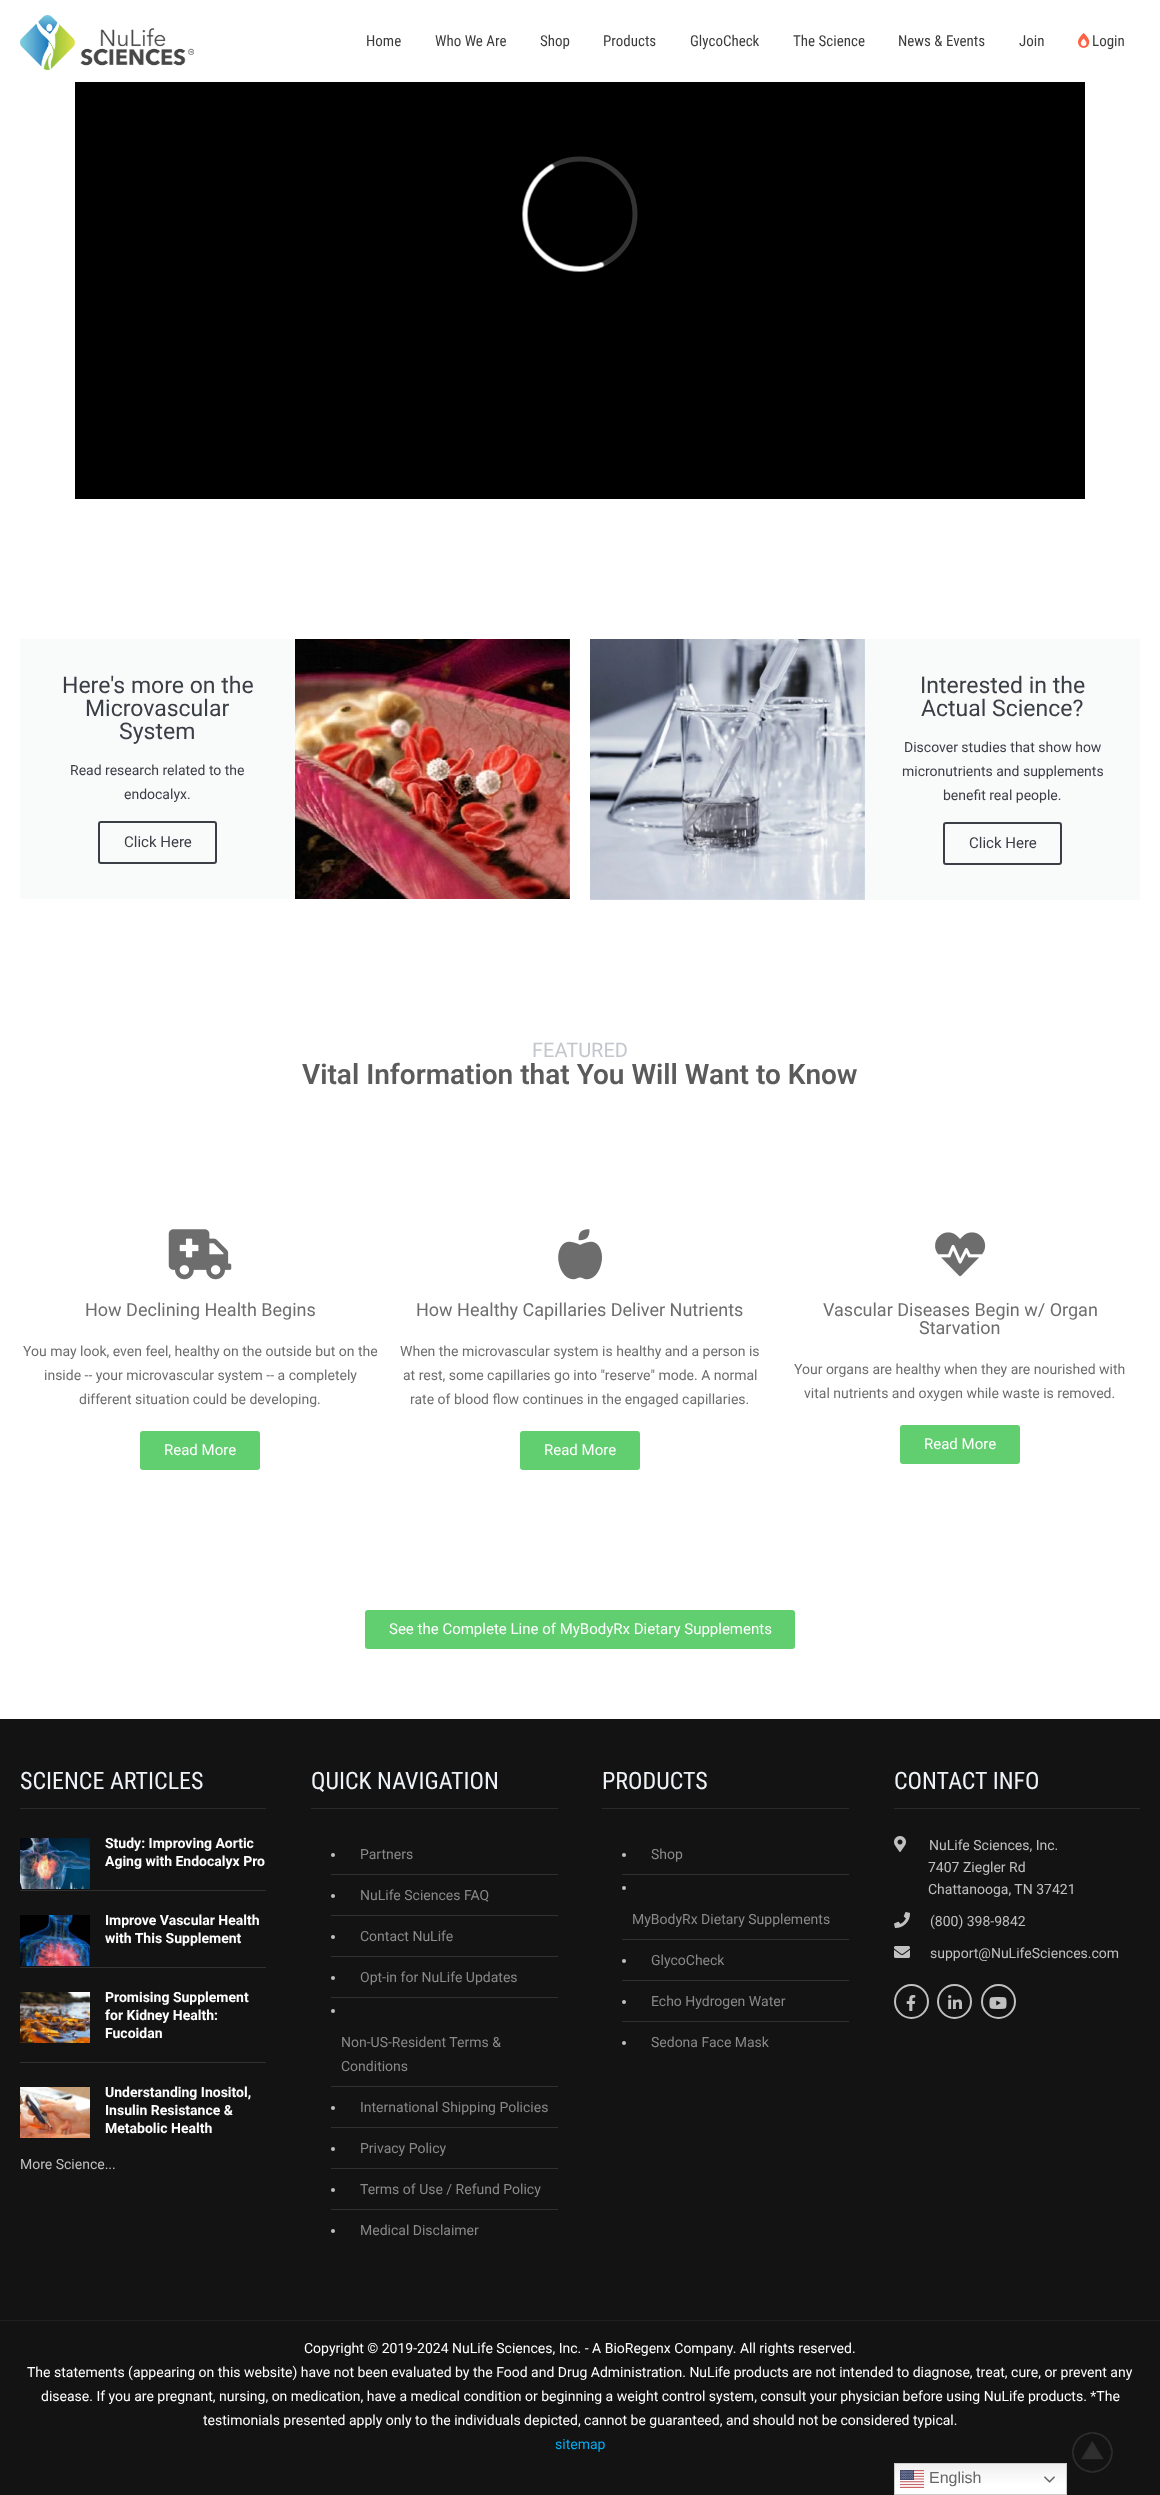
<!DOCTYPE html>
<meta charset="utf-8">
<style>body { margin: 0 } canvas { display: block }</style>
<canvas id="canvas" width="1160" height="2495"></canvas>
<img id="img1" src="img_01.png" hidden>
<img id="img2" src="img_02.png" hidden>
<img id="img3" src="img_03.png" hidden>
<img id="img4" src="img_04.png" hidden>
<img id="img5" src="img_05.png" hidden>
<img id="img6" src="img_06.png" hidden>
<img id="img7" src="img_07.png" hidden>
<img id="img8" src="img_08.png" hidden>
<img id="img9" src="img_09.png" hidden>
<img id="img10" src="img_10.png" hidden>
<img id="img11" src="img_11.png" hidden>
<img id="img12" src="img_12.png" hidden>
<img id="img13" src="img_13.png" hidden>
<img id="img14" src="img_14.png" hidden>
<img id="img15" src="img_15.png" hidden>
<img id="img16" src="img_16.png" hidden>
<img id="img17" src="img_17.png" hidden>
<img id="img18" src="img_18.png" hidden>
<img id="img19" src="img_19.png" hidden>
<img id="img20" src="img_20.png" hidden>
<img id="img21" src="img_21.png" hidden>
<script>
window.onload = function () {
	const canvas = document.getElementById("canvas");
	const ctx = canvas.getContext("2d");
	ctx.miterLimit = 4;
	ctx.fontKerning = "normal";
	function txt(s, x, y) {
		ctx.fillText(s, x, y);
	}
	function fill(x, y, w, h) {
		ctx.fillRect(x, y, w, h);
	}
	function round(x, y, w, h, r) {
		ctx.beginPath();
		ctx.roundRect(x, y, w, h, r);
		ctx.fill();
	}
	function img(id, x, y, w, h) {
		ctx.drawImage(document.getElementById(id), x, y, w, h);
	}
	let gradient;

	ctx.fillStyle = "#FFFFFF";
	fill(0, 0, 1160, 2495);
	img("img1", 20, 15, 174, 55);
	img("img2", 1078, 33, 12, 15);
	ctx.fillStyle = "#000000";
	fill(75, 82, 1010, 417);
	img("img3", 522, 156, 116, 116);
	ctx.fillStyle = "#F9FAFA";
	fill(20, 639, 275, 260);
	ctx.beginPath();
	ctx.roundRect(99, 822, 117, 41, 2);
	ctx.strokeStyle = "#3A3F45";
	ctx.lineWidth = 2;
	ctx.stroke();
	img("img4", 295, 639, 275, 260);
	img("img5", 590, 639, 275, 261);
	fill(865, 639, 275, 261);
	ctx.beginPath();
	ctx.roundRect(944, 823, 117, 41, 2);
	ctx.stroke();
	img("img6", 168, 1229, 64, 51);
	ctx.fillStyle = "#61CE70";
	round(140, 1431, 120, 39, 3);
	img("img7", 558, 1229, 44, 51);
	round(520, 1431, 120, 39, 3);
	img("img8", 935, 1232, 51, 45);
	round(900, 1425, 120, 39, 3);
	round(365, 1610, 430, 39, 3);
	ctx.fillStyle = "#131313";
	fill(0, 1719, 1160, 776);
	ctx.fillStyle = "#2A2A2A";
	fill(20, 1808, 246, 1);
	ctx.fillStyle = "#303030";
	fill(20, 1890, 246, 1);
	img("img9", 20, 1838, 70, 51);
	fill(20, 1967, 246, 1);
	img("img10", 20, 1915, 70, 51);
	fill(20, 2062, 246, 1);
	img("img11", 20, 1992, 70, 51);
	img("img12", 20, 2087, 70, 51);
	ctx.fillStyle = "#2A2A2A";
	fill(311, 1808, 247, 1);
	ctx.fillStyle = "#303030";
	fill(331, 1874, 227, 1);
	ctx.fillStyle = "#C1C0C0";
	ctx.beginPath();
	ctx.arc(333, 1855, 2, 0, Math.PI * 2);
	ctx.fill();
	ctx.fillStyle = "#303030";
	fill(331, 1915, 227, 1);
	ctx.fillStyle = "#C1C0C0";
	ctx.beginPath();
	ctx.arc(333, 1896, 2, 0, Math.PI * 2);
	ctx.fill();
	ctx.fillStyle = "#303030";
	fill(331, 1956, 227, 1);
	ctx.fillStyle = "#C1C0C0";
	ctx.beginPath();
	ctx.arc(333, 1937, 2, 0, Math.PI * 2);
	ctx.fill();
	ctx.fillStyle = "#303030";
	fill(331, 1997, 227, 1);
	ctx.fillStyle = "#C1C0C0";
	ctx.beginPath();
	ctx.arc(333, 1978, 2, 0, Math.PI * 2);
	ctx.fill();
	ctx.fillStyle = "#303030";
	fill(331, 2086, 227, 1);
	ctx.fillStyle = "#C1C0C0";
	ctx.beginPath();
	ctx.arc(333, 2011, 2, 0, Math.PI * 2);
	ctx.fill();
	ctx.fillStyle = "#303030";
	fill(331, 2127, 227, 1);
	ctx.fillStyle = "#C1C0C0";
	ctx.beginPath();
	ctx.arc(333, 2108, 2, 0, Math.PI * 2);
	ctx.fill();
	ctx.fillStyle = "#303030";
	fill(331, 2168, 227, 1);
	ctx.fillStyle = "#C1C0C0";
	ctx.beginPath();
	ctx.arc(333, 2149, 2, 0, Math.PI * 2);
	ctx.fill();
	ctx.fillStyle = "#303030";
	fill(331, 2209, 227, 1);
	ctx.fillStyle = "#C1C0C0";
	ctx.beginPath();
	ctx.arc(333, 2190, 2, 0, Math.PI * 2);
	ctx.fill();
	ctx.beginPath();
	ctx.arc(333, 2231, 2, 0, Math.PI * 2);
	ctx.fill();
	ctx.fillStyle = "#2A2A2A";
	fill(602, 1808, 247, 1);
	ctx.fillStyle = "#303030";
	fill(622, 1874, 227, 1);
	ctx.fillStyle = "#C1C0C0";
	ctx.beginPath();
	ctx.arc(624, 1855, 2, 0, Math.PI * 2);
	ctx.fill();
	ctx.fillStyle = "#303030";
	fill(622, 1939, 227, 1);
	ctx.fillStyle = "#C1C0C0";
	ctx.beginPath();
	ctx.arc(624, 1888, 2, 0, Math.PI * 2);
	ctx.fill();
	ctx.fillStyle = "#303030";
	fill(622, 1980, 227, 1);
	ctx.fillStyle = "#C1C0C0";
	ctx.beginPath();
	ctx.arc(624, 1961, 2, 0, Math.PI * 2);
	ctx.fill();
	ctx.fillStyle = "#303030";
	fill(622, 2021, 227, 1);
	ctx.fillStyle = "#C1C0C0";
	ctx.beginPath();
	ctx.arc(624, 2002, 2, 0, Math.PI * 2);
	ctx.fill();
	ctx.beginPath();
	ctx.arc(624, 2043, 2, 0, Math.PI * 2);
	ctx.fill();
	ctx.fillStyle = "#2A2A2A";
	fill(894, 1808, 246, 1);
	img("img13", 894, 1836, 12, 16);
	img("img14", 894, 1912, 16, 16);
	img("img15", 894, 1946, 16, 12);
	ctx.beginPath();
	ctx.arc(911.5, 2001.5, 16.5, 0, Math.PI * 2);
	ctx.strokeStyle = "#C1C0C0";
	ctx.stroke();
	img("img16", 906, 1995, 10, 16);
	ctx.beginPath();
	ctx.arc(954.5, 2001.5, 16.5, 0, Math.PI * 2);
	ctx.stroke();
	img("img17", 948, 1995, 14, 14);
	ctx.beginPath();
	ctx.arc(998.5, 2001.5, 16.5, 0, Math.PI * 2);
	ctx.stroke();
	img("img18", 989, 1997, 18, 12);
	ctx.fillStyle = "#202020";
	fill(0, 2320, 1160, 1);
	img("img19", 1072, 2432, 41, 41);
	gradient = ctx.createLinearGradient(981, 2463, 981, 2495);
	gradient.addColorStop(0, "#EFEFEF");
	gradient.addColorStop(0.7, "#FFFFFF");
	ctx.fillStyle = gradient;
	fill(895, 2464, 171, 30);
	ctx.strokeStyle = "#CCCCCC";
	ctx.lineWidth = 1;
	ctx.strokeRect(894.5, 2463.5, 172, 31);
	img("img20", 900, 2470, 24, 18);
	img("img21", 1044, 2476, 11, 7);
	ctx.font = "15px Roboto Condensed";
	ctx.fillStyle = "#3C3C3C";
	txt("Home", 366, 46);
	txt("Who We Are", 435, 46);
	txt("Shop", 540, 46);
	txt("Products", 603, 46);
	txt("GlycoCheck", 690, 46);
	txt("The Science", 793, 46);
	txt("News & Events", 898, 46);
	txt("Join", 1019, 46);
	txt("Login", 1092, 46);
	ctx.font = "23px Roboto";
	ctx.fillStyle = "#3A3F45";
	txt("Here's more on the", 62, 693);
	txt("Microvascular", 85, 716);
	txt("System", 119, 739);
	ctx.font = "14px Roboto";
	txt("Read research related to the", 70, 775);
	txt("endocalyx.", 124, 799);
	ctx.font = "15px Roboto";
	txt("Click Here", 124, 847);
	ctx.font = "23px Roboto";
	txt("Interested in the", 920, 693);
	txt("Actual Science?", 921, 716);
	ctx.font = "14px Roboto";
	txt("Discover studies that show how", 904, 752);
	txt("micronutrients and supplements", 902, 776);
	txt("benefit real people.", 943, 800);
	ctx.font = "15px Roboto";
	txt("Click Here", 969, 848);
	ctx.font = "20px Roboto";
	ctx.fillStyle = "#C3C7CB";
	txt("FEATURED", 532, 1057);
	ctx.font = "600 28px Roboto";
	ctx.fillStyle = "#5B5B5B";
	txt("Vital Information that You Will Want to Know", 302, 1084);
	ctx.font = "18px Roboto";
	ctx.fillStyle = "#6E6D6D";
	txt("How Declining Health Begins", 85, 1316);
	ctx.font = "14px Roboto";
	txt("You may look, even feel, healthy on the outside but on the", 23, 1356);
	txt("inside -- your microvascular system -- a completely", 44, 1380);
	txt("different situation could be developing.", 79, 1404);
	ctx.font = "15px Roboto";
	ctx.fillStyle = "#FFFFFF";
	txt("Read More", 164, 1455);
	ctx.font = "18px Roboto";
	ctx.fillStyle = "#6E6D6D";
	txt("How Healthy Capillaries Deliver Nutrients", 416, 1316);
	ctx.font = "14px Roboto";
	txt("When the microvascular system is healthy and a person is", 400, 1356);
	txt("at rest, some capillaries go into \"reserve\" mode. A normal", 403, 1380);
	txt("rate of blood flow continues in the engaged capillaries.", 410, 1404);
	ctx.font = "15px Roboto";
	ctx.fillStyle = "#FFFFFF";
	txt("Read More", 544, 1455);
	ctx.font = "18px Roboto";
	ctx.fillStyle = "#6E6D6D";
	txt("Vascular Diseases Begin w/ Organ", 823, 1316);
	txt("Starvation", 919, 1334);
	ctx.font = "14px Roboto";
	txt("Your organs are healthy when they are nourished with", 794, 1374);
	txt("vital nutrients and oxygen while waste is removed.", 804, 1398);
	ctx.font = "15px Roboto";
	ctx.fillStyle = "#FFFFFF";
	txt("Read More", 924, 1449);
	txt("See the Complete Line of MyBodyRx Dietary Supplements", 389, 1634);
	ctx.font = "24px Roboto Condensed";
	ctx.fillStyle = "#EFF3F7";
	txt("SCIENCE ARTICLES", 20, 1789);
	ctx.font = "bold 14px Roboto";
	ctx.fillStyle = "#FFFFFF";
	txt("Study: Improving Aortic", 105, 1848);
	txt("Aging with Endocalyx Pro", 105, 1866);
	txt("Improve Vascular Health", 105, 1925);
	txt("with This Supplement", 105, 1943);
	txt("Promising Supplement", 105, 2002);
	txt("for Kidney Health:", 105, 2020);
	txt("Fucoidan", 105, 2038);
	txt("Understanding Inositol,", 105, 2097);
	txt("Insulin Resistance &", 105, 2115);
	txt("Metabolic Health", 105, 2133);
	ctx.font = "14px Roboto";
	ctx.fillStyle = "#C1C0C0";
	txt("More Science...", 20, 2169);
	ctx.font = "24px Roboto Condensed";
	ctx.fillStyle = "#EFF3F7";
	txt("QUICK NAVIGATION", 311, 1789);
	ctx.font = "14px Roboto";
	ctx.fillStyle = "#8A8989";
	txt("Partners", 360, 1859);
	txt("NuLife Sciences FAQ", 360, 1900);
	txt("Contact NuLife", 360, 1941);
	txt("Opt-in for NuLife Updates", 360, 1982);
	txt("Non-US-Resident Terms &", 341, 2047);
	txt("Conditions", 341, 2071);
	txt("International Shipping Policies", 360, 2112);
	txt("Privacy Policy", 360, 2153);
	txt("Terms of Use / Refund Policy", 360, 2194);
	txt("Medical Disclaimer", 360, 2235);
	ctx.font = "24px Roboto Condensed";
	ctx.fillStyle = "#EFF3F7";
	txt("PRODUCTS", 602, 1789);
	ctx.font = "14px Roboto";
	ctx.fillStyle = "#8A8989";
	txt("Shop", 651, 1859);
	txt("MyBodyRx Dietary Supplements", 632, 1924);
	txt("GlycoCheck", 651, 1965);
	txt("Echo Hydrogen Water", 651, 2006);
	txt("Sedona Face Mask", 651, 2047);
	ctx.font = "24px Roboto Condensed";
	ctx.fillStyle = "#EFF3F7";
	txt("CONTACT INFO", 894, 1789);
	ctx.font = "14px Roboto";
	ctx.fillStyle = "#C1C0C0";
	txt("NuLife Sciences, Inc.", 929, 1850);
	txt("7407 Ziegler Rd", 928, 1872);
	txt("Chattanooga, TN 37421", 928, 1894);
	txt("(800) 398-9842", 930, 1926);
	txt("support@NuLifeSciences.com", 930, 1958);
	ctx.fillStyle = "#FFFFFF";
	txt("Copyright © 2019-2024 NuLife Sciences, Inc. - A BioRegenx Company. All rights reserved.", 304, 2353);
	txt("The statements (appearing on this website) have not been evaluated by the Food and Drug Administration. NuLife products are not intended to diagnose, treat, cure, or prevent any", 27, 2377);
	txt("disease. If you are pregnant, nursing, on medication, have a medical condition or beginning a weight control system, consult your physician before using NuLife products. *The", 41, 2401);
	txt("testimonials presented apply only to the individuals depicted, cannot be guaranteed, and should not be considered typical.", 203, 2425);
	ctx.fillStyle = "#02ADF4";
	txt("sitemap", 555, 2449);
	ctx.font = "16px Liberation Sans";
	ctx.fillStyle = "#666666";
	txt("English", 929, 2483);
};
</script>
